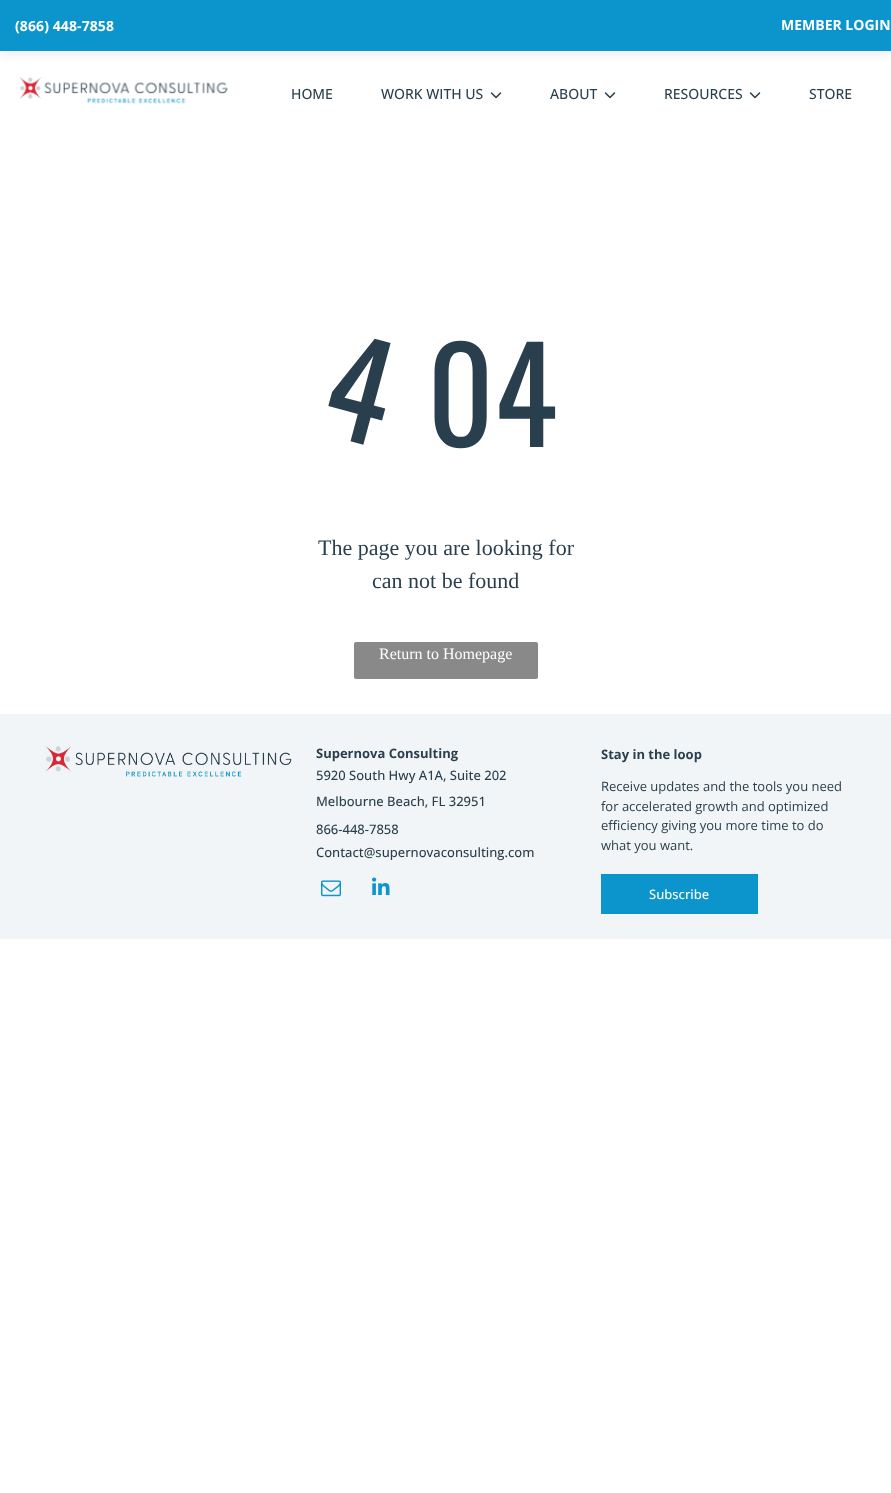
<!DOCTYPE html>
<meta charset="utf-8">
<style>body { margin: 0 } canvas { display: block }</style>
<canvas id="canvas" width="891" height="1493"></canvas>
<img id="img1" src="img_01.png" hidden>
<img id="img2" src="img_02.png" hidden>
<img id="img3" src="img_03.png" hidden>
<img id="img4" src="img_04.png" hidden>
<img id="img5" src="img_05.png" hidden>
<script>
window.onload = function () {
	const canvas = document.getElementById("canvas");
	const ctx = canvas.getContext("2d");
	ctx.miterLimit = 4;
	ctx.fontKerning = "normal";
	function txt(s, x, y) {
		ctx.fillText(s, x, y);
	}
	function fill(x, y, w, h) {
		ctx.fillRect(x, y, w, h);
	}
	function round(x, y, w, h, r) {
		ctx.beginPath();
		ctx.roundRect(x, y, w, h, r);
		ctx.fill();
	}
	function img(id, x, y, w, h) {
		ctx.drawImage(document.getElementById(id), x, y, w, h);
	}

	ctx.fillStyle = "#FFFFFF";
	fill(0, 0, 891, 1493);
	ctx.fillStyle = "rgba(0, 0, 0, 0.08)";
	ctx.filter = "blur(5.5px)";
	ctx.beginPath();
	ctx.rect(0, 3, 891, 51);
	ctx.fill();
	ctx.filter = "none";
	ctx.fillStyle = "#0C95CC";
	fill(0, 0, 891, 51);
	img("img1", 19, 77, 209, 27);
	img("img2", 490, 92, 12, 7);
	img("img2", 604, 92, 12, 7);
	img("img2", 749, 92, 12, 7);
	ctx.fillStyle = "#898989";
	round(354, 642, 184, 37, 2);
	ctx.fillStyle = "#F1F5F7";
	fill(0, 714, 891, 225);
	img("img3", 45, 746, 247, 31);
	img("img4", 321, 880, 20, 17);
	img("img5", 372, 877, 18, 18);
	ctx.fillStyle = "#0C95CC";
	fill(601, 874, 157, 40);
	ctx.letterSpacing = "0.1px";
	ctx.font = "bold 14px Open Sans";
	ctx.fillStyle = "#FFFFFF";
	txt("(866) 448-7858", 15, 31);
	ctx.letterSpacing = "0px";
	txt("MEMBER LOGIN", 781, 30);
	ctx.font = "500 14px Open Sans";
	ctx.fillStyle = "#2A3F4D";
	txt("HOME", 291, 99);
	txt("WORK WITH US", 381, 99);
	txt("ABOUT", 550, 99);
	txt("RESOURCES", 664, 99);
	txt("STORE", 809, 99);
	ctx.font = "130px Oswald";
	ctx.save();
	ctx.translate(316, 432);
	ctx.rotate(15 * Math.PI / 180);
	ctx.fillText("4", 0, 0);
	ctx.restore();
	txt("04", 427, 447);
	ctx.font = "22px Liberation Serif";
	txt("The page you are looking for", 318, 555);
	txt("can not be found", 372, 588);
	ctx.font = "16px Liberation Serif";
	ctx.fillStyle = "#FFFFFF";
	txt("Return to Homepage", 379, 659);
	ctx.font = "bold 13px Open Sans";
	ctx.fillStyle = "#2A3F4D";
	txt("Supernova Consulting", 316, 758);
	ctx.font = "500 13px Open Sans";
	txt("5920 South Hwy A1A, Suite 202", 316, 780);
	txt("Melbourne Beach, FL 32951", 316, 806);
	txt("866-448-7858", 316, 834);
	txt("Contact@supernovaconsulting.com", 316, 857);
	ctx.font = "bold 13px Open Sans";
	txt("Stay in the loop", 601, 759);
	ctx.font = "13px Open Sans";
	txt("Receive updates and the tools you need", 601, 791);
	txt("for accelerated growth and optimized", 601, 811);
	txt("efficiency giving you more time to do", 601, 830);
	txt("what you want.", 601, 850);
	ctx.font = "500 13px Open Sans";
	ctx.fillStyle = "#FFFFFF";
	txt("Subscribe", 649, 899);
};
</script>
